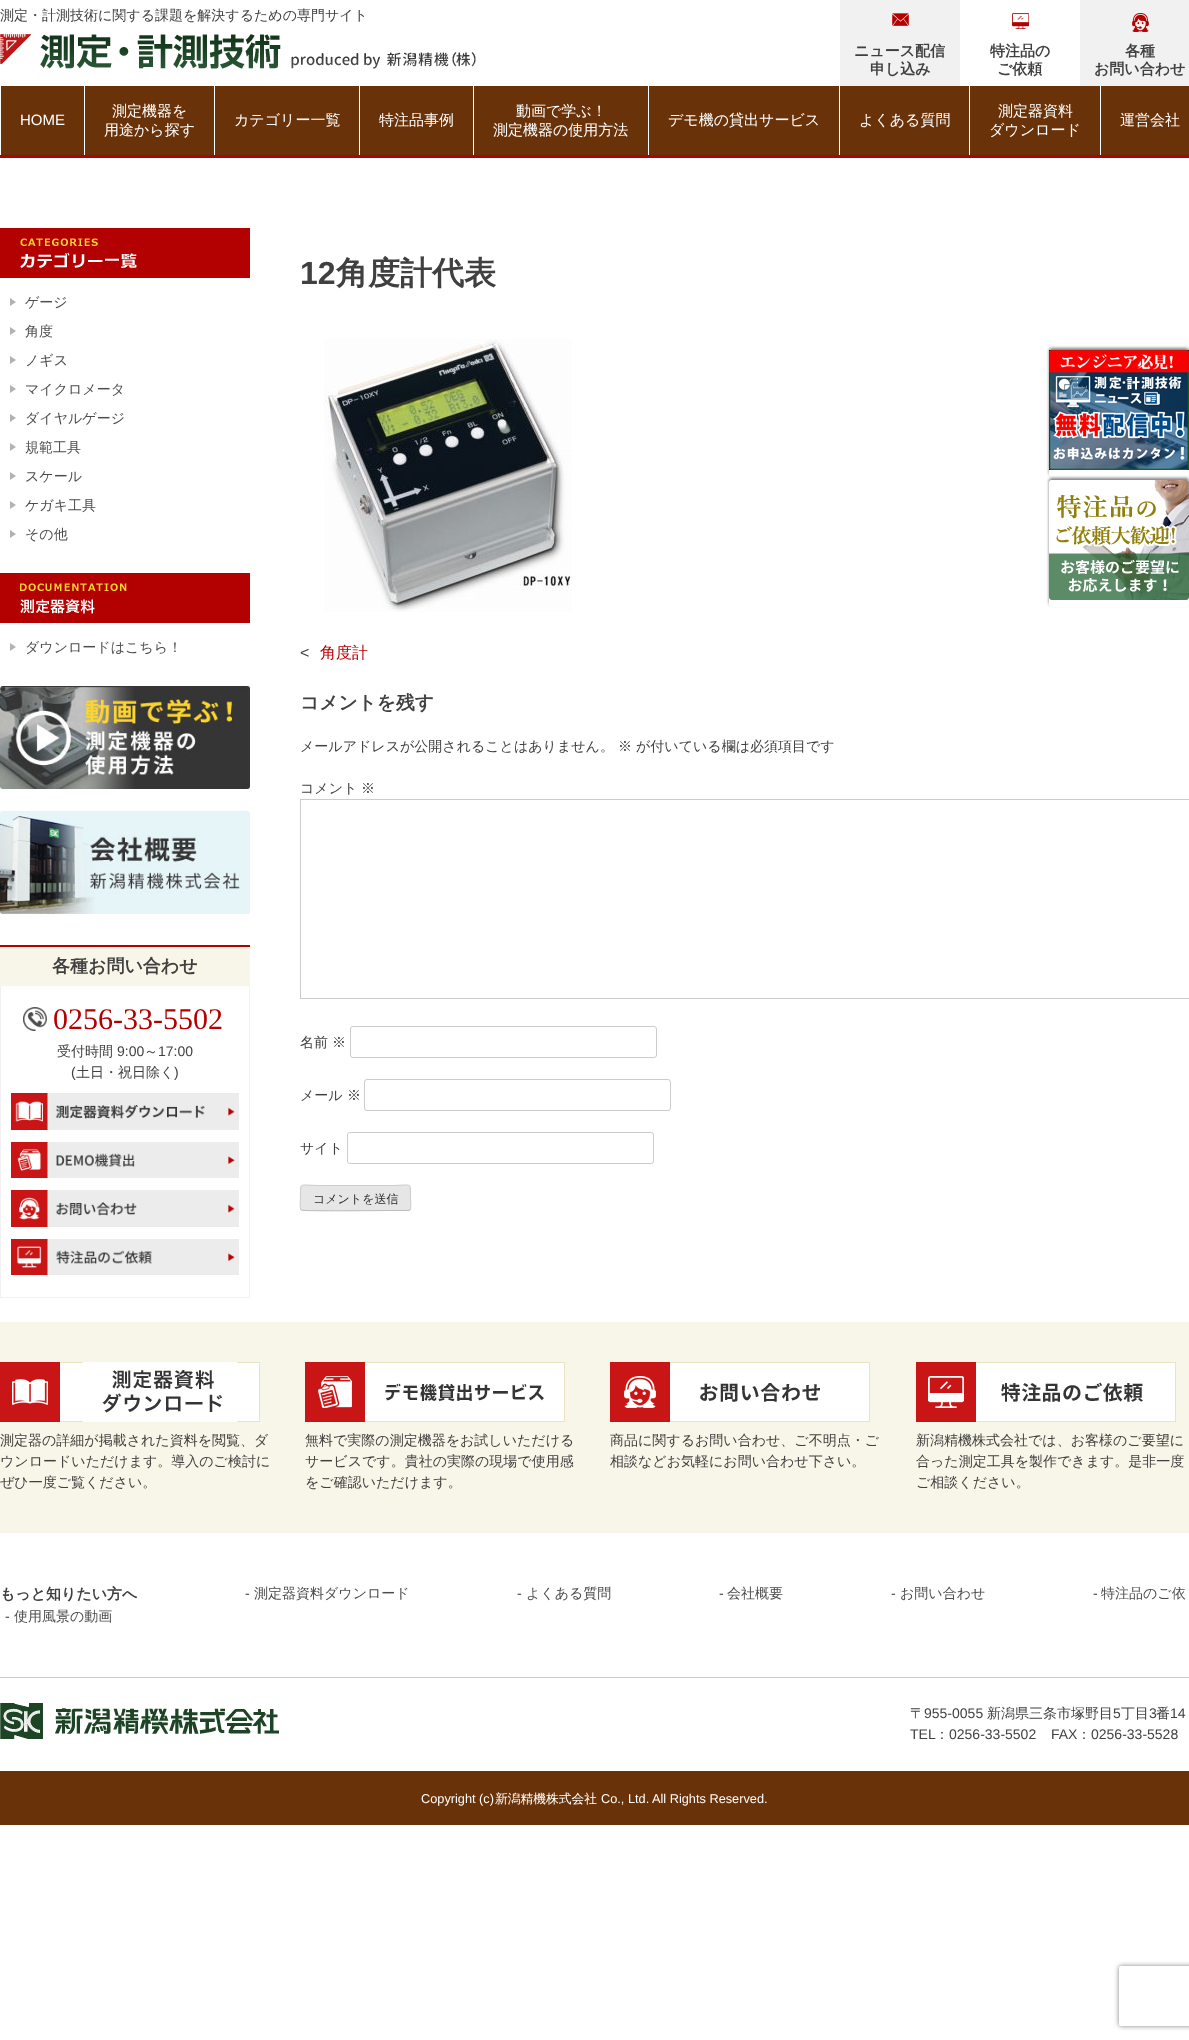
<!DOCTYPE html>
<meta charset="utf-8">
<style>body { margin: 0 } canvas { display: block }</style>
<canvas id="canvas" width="1189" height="2040"></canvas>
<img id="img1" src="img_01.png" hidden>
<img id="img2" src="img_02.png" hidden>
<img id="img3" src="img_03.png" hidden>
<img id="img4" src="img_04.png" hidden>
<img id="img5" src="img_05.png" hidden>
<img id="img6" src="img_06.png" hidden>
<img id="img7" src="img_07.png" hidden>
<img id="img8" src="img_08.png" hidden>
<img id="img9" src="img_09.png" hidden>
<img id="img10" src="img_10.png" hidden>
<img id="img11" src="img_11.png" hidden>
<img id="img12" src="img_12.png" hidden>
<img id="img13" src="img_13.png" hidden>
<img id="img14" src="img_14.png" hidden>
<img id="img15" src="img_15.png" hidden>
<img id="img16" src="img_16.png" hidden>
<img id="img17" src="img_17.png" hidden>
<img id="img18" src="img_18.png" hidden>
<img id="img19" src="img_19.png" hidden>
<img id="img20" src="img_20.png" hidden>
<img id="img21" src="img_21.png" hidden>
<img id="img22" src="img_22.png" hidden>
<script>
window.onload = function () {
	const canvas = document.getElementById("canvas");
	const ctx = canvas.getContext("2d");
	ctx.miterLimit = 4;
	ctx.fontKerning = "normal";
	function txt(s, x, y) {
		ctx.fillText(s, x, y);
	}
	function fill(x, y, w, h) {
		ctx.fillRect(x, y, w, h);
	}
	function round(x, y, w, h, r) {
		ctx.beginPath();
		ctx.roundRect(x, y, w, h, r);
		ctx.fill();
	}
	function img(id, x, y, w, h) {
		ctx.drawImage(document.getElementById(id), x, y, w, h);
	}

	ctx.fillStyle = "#FFFFFF";
	fill(0, 0, 1189, 2040);
	img("img1", 0, 34, 281, 35);
	img("img2", 291, 52, 185, 17);
	ctx.fillStyle = "#F1F1F1";
	fill(840, 0, 120, 86);
	img("img3", 892, 13, 17, 13);
	img("img4", 1012, 13, 17, 16);
	fill(1080, 0, 109, 86);
	img("img5", 1132, 13, 17, 19);
	ctx.fillStyle = "#6A3208";
	fill(1, 86, 1188, 69);
	ctx.fillStyle = "#B30000";
	fill(0, 155, 1189, 3);
	ctx.fillStyle = "#FFFFFF";
	fill(84, 86, 1, 69);
	fill(214, 86, 1, 69);
	fill(359, 86, 1, 69);
	fill(473, 86, 1, 69);
	fill(648, 86, 1, 69);
	fill(839, 86, 1, 69);
	fill(969, 86, 1, 69);
	fill(1100, 86, 1, 69);
	img("img6", 0, 228, 250, 50);
	ctx.fillStyle = "#B2B2B2";
	ctx.beginPath();
	ctx.moveTo(10, 306);
	ctx.lineTo(10, 298);
	ctx.lineTo(16, 302);
	ctx.closePath();
	ctx.fill();
	ctx.beginPath();
	ctx.moveTo(10, 335);
	ctx.lineTo(10, 327);
	ctx.lineTo(16, 331);
	ctx.closePath();
	ctx.fill();
	ctx.beginPath();
	ctx.moveTo(10, 364);
	ctx.lineTo(10, 356);
	ctx.lineTo(16, 360);
	ctx.closePath();
	ctx.fill();
	ctx.beginPath();
	ctx.moveTo(10, 393);
	ctx.lineTo(10, 385);
	ctx.lineTo(16, 389);
	ctx.closePath();
	ctx.fill();
	ctx.beginPath();
	ctx.moveTo(10, 422);
	ctx.lineTo(10, 414);
	ctx.lineTo(16, 418);
	ctx.closePath();
	ctx.fill();
	ctx.beginPath();
	ctx.moveTo(10, 451);
	ctx.lineTo(10, 443);
	ctx.lineTo(16, 447);
	ctx.closePath();
	ctx.fill();
	ctx.beginPath();
	ctx.moveTo(10, 480);
	ctx.lineTo(10, 472);
	ctx.lineTo(16, 476);
	ctx.closePath();
	ctx.fill();
	ctx.beginPath();
	ctx.moveTo(10, 509);
	ctx.lineTo(10, 501);
	ctx.lineTo(16, 505);
	ctx.closePath();
	ctx.fill();
	ctx.beginPath();
	ctx.moveTo(10, 538);
	ctx.lineTo(10, 530);
	ctx.lineTo(16, 534);
	ctx.closePath();
	ctx.fill();
	img("img7", 0, 573, 250, 50);
	ctx.beginPath();
	ctx.moveTo(10, 651);
	ctx.lineTo(10, 643);
	ctx.lineTo(16, 647);
	ctx.closePath();
	ctx.fill();
	img("img8", 0, 686, 250, 103);
	img("img9", 0, 811, 250, 103);
	ctx.fillStyle = "#F8F6E8";
	fill(0, 947, 250, 39);
	ctx.fillStyle = "#B30000";
	fill(0, 945, 250, 2);
	ctx.fillStyle = "#F1F1F1";
	fill(249, 986, 1, 312);
	fill(0, 1297, 250, 1);
	fill(0, 986, 1, 312);
	img("img10", 23, 1007, 24, 24);
	img("img11", 11, 1093, 228, 37);
	img("img12", 11, 1142, 228, 36);
	img("img13", 11, 1190, 228, 37);
	img("img14", 11, 1239, 228, 36);
	img("img15", 324, 339, 248, 273);
	ctx.strokeStyle = "#CCCCCC";
	ctx.strokeRect(300.5, 799.5, 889, 199);
	ctx.beginPath();
	ctx.roundRect(350.5, 1026.5, 306, 31, 2.5);
	ctx.stroke();
	ctx.beginPath();
	ctx.roundRect(364.5, 1079.5, 306, 31, 2.5);
	ctx.stroke();
	ctx.beginPath();
	ctx.roundRect(347.5, 1132.5, 306, 31, 2.5);
	ctx.stroke();
	ctx.fillStyle = "#E6E6E6";
	round(300, 1185, 111, 26, 3);
	ctx.beginPath();
	ctx.moveTo(410, 1210);
	ctx.lineTo(408, 1210.5);
	ctx.lineTo(390.5, 1210.5);
	ctx.bezierCurveTo(381.5, 1210.5, 303.5, 1211.5, 301.5, 1210);
	ctx.lineTo(301, 1210);
	ctx.strokeStyle = "#BBBBBB";
	ctx.stroke();
	ctx.beginPath();
	ctx.moveTo(301, 1210);
	ctx.bezierCurveTo(299.5, 1208, 300.5, 1200.5, 300.5, 1198);
	ctx.bezierCurveTo(300.5, 1181, 299, 1185.5, 320.5, 1185.5);
	ctx.lineTo(390.5, 1185.5);
	ctx.bezierCurveTo(412, 1185.5, 410.5, 1181, 410.5, 1198);
	ctx.bezierCurveTo(410.5, 1200.5, 411.5, 1208, 410, 1210);
	ctx.strokeStyle = "#CCCCCC";
	ctx.stroke();
	ctx.fillStyle = "#F8F6E8";
	fill(0, 1322, 1189, 211);
	img("img16", 0, 1362, 260, 60);
	img("img17", 305, 1362, 260, 60);
	img("img18", 610, 1362, 260, 60);
	img("img19", 916, 1362, 260, 60);
	ctx.fillStyle = "#CCCCCC";
	fill(0, 1677, 1189, 1);
	img("img20", 0, 1703, 279, 36);
	ctx.fillStyle = "#6A3208";
	fill(0, 1771, 1189, 54);
	ctx.save();
	ctx.beginPath();
	ctx.moveTo(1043, 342);
	ctx.lineTo(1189, 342);
	ctx.lineTo(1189, 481);
	ctx.lineTo(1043, 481);
	ctx.closePath();
	ctx.moveTo(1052, 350);
	ctx.lineTo(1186, 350);
	ctx.bezierCurveTo(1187.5, 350, 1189, 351.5, 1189, 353);
	ctx.lineTo(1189, 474);
	ctx.bezierCurveTo(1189, 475.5, 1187.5, 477, 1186, 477);
	ctx.lineTo(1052, 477);
	ctx.bezierCurveTo(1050.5, 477, 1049, 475.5, 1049, 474);
	ctx.lineTo(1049, 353);
	ctx.bezierCurveTo(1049, 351.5, 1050.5, 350, 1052, 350);
	ctx.closePath();
	ctx.clip("evenodd");
	ctx.fillStyle = "rgba(0, 0, 0, 0.5)";
	ctx.filter = "blur(1.5px)";
	ctx.beginPath();
	ctx.roundRect(1049, 348, 140, 127, 3);
	ctx.fill();
	ctx.filter = "none";
	ctx.restore();
	img("img21", 1049, 350, 140, 120);
	ctx.save();
	ctx.beginPath();
	ctx.moveTo(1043, 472);
	ctx.lineTo(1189, 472);
	ctx.lineTo(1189, 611);
	ctx.lineTo(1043, 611);
	ctx.closePath();
	ctx.moveTo(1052, 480);
	ctx.lineTo(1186, 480);
	ctx.bezierCurveTo(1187.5, 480, 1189, 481.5, 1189, 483);
	ctx.lineTo(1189, 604);
	ctx.bezierCurveTo(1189, 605.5, 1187.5, 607, 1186, 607);
	ctx.lineTo(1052, 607);
	ctx.bezierCurveTo(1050.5, 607, 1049, 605.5, 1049, 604);
	ctx.lineTo(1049, 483);
	ctx.bezierCurveTo(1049, 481.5, 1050.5, 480, 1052, 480);
	ctx.closePath();
	ctx.clip("evenodd");
	ctx.fillStyle = "rgba(0, 0, 0, 0.5)";
	ctx.filter = "blur(1.5px)";
	ctx.beginPath();
	ctx.roundRect(1049, 478, 140, 127, 3);
	ctx.fill();
	ctx.filter = "none";
	ctx.restore();
	img("img22", 1049, 480, 140, 120);
	ctx.save();
	ctx.beginPath();
	ctx.moveTo(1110, 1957);
	ctx.lineTo(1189, 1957);
	ctx.lineTo(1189, 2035);
	ctx.lineTo(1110, 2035);
	ctx.closePath();
	ctx.moveTo(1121, 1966);
	ctx.lineTo(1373, 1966);
	ctx.bezierCurveTo(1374, 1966, 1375, 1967, 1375, 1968);
	ctx.lineTo(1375, 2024);
	ctx.bezierCurveTo(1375, 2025, 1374, 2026, 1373, 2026);
	ctx.lineTo(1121, 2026);
	ctx.bezierCurveTo(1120, 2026, 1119, 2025, 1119, 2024);
	ctx.lineTo(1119, 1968);
	ctx.bezierCurveTo(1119, 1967, 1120, 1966, 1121, 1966);
	ctx.closePath();
	ctx.clip("evenodd");
	ctx.fillStyle = "#808080";
	ctx.filter = "blur(2.5px)";
	ctx.beginPath();
	ctx.roundRect(1119, 1966, 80, 60, 2);
	ctx.fill();
	ctx.filter = "none";
	ctx.restore();
	ctx.font = "500 14px WenQuanYi Zen Hei";
	ctx.fillStyle = "#404040";
	txt("測定・計測技術に関する課題を解決するための専門サイト", 0, 20);
	ctx.font = "bold 15px WenQuanYi Zen Hei";
	txt("ニュース配信", 854, 56);
	txt("申し込み", 870, 74);
	txt("特注品の", 990, 56);
	txt("ご依頼", 997, 74);
	txt("各種", 1125, 56);
	txt("お問い合わせ", 1094, 74);
	ctx.font = "15px Liberation Sans";
	ctx.fillStyle = "#FFFFFF";
	txt("HOME", 20, 125);
	ctx.font = "500 15px WenQuanYi Zen Hei";
	txt("測定機器を", 112, 116);
	txt("用途から探す", 104, 135);
	txt("カテゴリー一覧", 234, 125);
	txt("特注品事例", 379, 125);
	txt("動画で学ぶ！", 516, 116);
	txt("測定機器の使用方法", 493, 135);
	txt("デモ機の貸出サービス", 668, 125);
	txt("よくある質問", 859, 125);
	txt("測定器資料", 998, 116);
	txt("ダウンロード", 989, 135);
	txt("運営会社", 1120, 125);
	ctx.font = "500 14px WenQuanYi Zen Hei";
	ctx.fillStyle = "#4C4C4C";
	txt("ゲージ", 25, 307);
	txt("角度", 25, 336);
	txt("ノギス", 25, 365);
	txt("マイクロメータ", 25, 394);
	txt("ダイヤルゲージ", 25, 423);
	txt("規範工具", 25, 452);
	txt("スケール", 25, 481);
	txt("ケガキ工具", 25, 510);
	txt("その他", 25, 539);
	txt("ダウンロードはこちら！", 25, 652);
	ctx.font = "bold 18px WenQuanYi Zen Hei";
	ctx.fillStyle = "#404040";
	txt("各種お問い合わせ", 52, 972);
	ctx.font = "30px Liberation Serif";
	ctx.fillStyle = "#B30000";
	txt("0256-33-5502", 53, 1029);
	ctx.font = "500 14px WenQuanYi Zen Hei";
	ctx.fillStyle = "#404040";
	txt("受付時間", 57, 1056);
	ctx.font = "14px Liberation Sans";
	txt("9:00", 117, 1056);
	ctx.font = "500 14px WenQuanYi Zen Hei";
	txt("～", 144, 1056);
	ctx.font = "14px Liberation Sans";
	txt("17:00", 158, 1056);
	txt("(", 71, 1077);
	ctx.font = "500 14px WenQuanYi Zen Hei";
	txt("土日・祝日除く", 76, 1077);
	ctx.font = "14px Liberation Sans";
	txt(")", 174, 1077);
	ctx.font = "bold 32px Liberation Sans";
	txt("12", 300, 284);
	ctx.font = "bold 32px WenQuanYi Zen Hei";
	txt("角度計代表", 336, 284);
	ctx.font = "16px Liberation Sans";
	txt("<", 300, 658);
	ctx.font = "500 16px WenQuanYi Zen Hei";
	ctx.fillStyle = "#B30000";
	txt("角度計", 320, 658);
	ctx.font = "bold 18.75px WenQuanYi Zen Hei";
	ctx.fillStyle = "#404040";
	txt("コメントを残す", 300, 709);
	ctx.font = "500 14px WenQuanYi Zen Hei";
	txt("メールアドレスが公開されることはありません。", 300, 751);
	txt("※", 618, 751);
	txt("が付いている欄は必須項目です", 636, 751);
	txt("コメント", 300, 793);
	txt("※", 361, 793);
	txt("名前", 300, 1047);
	txt("※", 332, 1047);
	txt("メール", 300, 1100);
	txt("※", 347, 1100);
	txt("サイト", 300, 1153);
	ctx.font = "500 12px WenQuanYi Zen Hei";
	ctx.fillStyle = "#2E2E2E";
	txt("コメントを送信", 313, 1203);
	ctx.font = "500 14px WenQuanYi Zen Hei";
	ctx.fillStyle = "#404040";
	txt("測定器の詳細が掲載された資料を閲覧、ダ", 0, 1445);
	txt("ウンロードいただけます。導入のご検討に", 0, 1466);
	txt("ぜひ一度ご覧ください。", 0, 1487);
	txt("無料で実際の測定機器をお試しいただける", 305, 1445);
	txt("サービスです。貴社の実際の現場で使用感", 305, 1466);
	txt("をご確認いただけます。", 305, 1487);
	txt("商品に関するお問い合わせ、ご不明点・ご", 610, 1445);
	txt("相談などお気軽にお問い合わせ下さい。", 610, 1466);
	txt("新潟精機株式会社では、お客様のご要望に", 916, 1445);
	txt("合った測定工具を製作できます。是非一度", 916, 1466);
	txt("ご相談ください。", 916, 1487);
	ctx.font = "bold 15px WenQuanYi Zen Hei";
	txt("もっと知りたい方へ", 0, 1599);
	ctx.font = "14px Liberation Sans";
	txt("-", 5, 1621);
	ctx.font = "500 14px WenQuanYi Zen Hei";
	ctx.fillStyle = "#4C4C4C";
	txt("使用風景の動画", 14, 1621);
	ctx.font = "14px Liberation Sans";
	ctx.fillStyle = "#404040";
	txt("-", 245, 1598);
	ctx.font = "500 14px WenQuanYi Zen Hei";
	ctx.fillStyle = "#4C4C4C";
	txt("測定器資料ダウンロード", 254, 1598);
	ctx.font = "14px Liberation Sans";
	ctx.fillStyle = "#404040";
	txt("-", 517, 1598);
	ctx.font = "500 14px WenQuanYi Zen Hei";
	ctx.fillStyle = "#4C4C4C";
	txt("よくある質問", 526, 1598);
	ctx.font = "14px Liberation Sans";
	ctx.fillStyle = "#404040";
	txt("-", 719, 1598);
	ctx.font = "500 14px WenQuanYi Zen Hei";
	ctx.fillStyle = "#4C4C4C";
	txt("会社概要", 727, 1598);
	ctx.font = "14px Liberation Sans";
	ctx.fillStyle = "#404040";
	txt("-", 891, 1598);
	ctx.font = "500 14px WenQuanYi Zen Hei";
	ctx.fillStyle = "#4C4C4C";
	txt("お問い合わせ", 900, 1598);
	ctx.font = "14px Liberation Sans";
	ctx.fillStyle = "#404040";
	txt("-", 1093, 1598);
	ctx.font = "500 14px WenQuanYi Zen Hei";
	ctx.fillStyle = "#4C4C4C";
	txt("特注品のご依", 1101, 1598);
	ctx.fillStyle = "#404040";
	txt("〒", 910, 1718);
	ctx.font = "14px Liberation Sans";
	txt("955-0055", 924, 1718);
	ctx.font = "500 14px WenQuanYi Zen Hei";
	txt("新潟県三条市塚野目", 987, 1718);
	ctx.font = "14px Liberation Sans";
	txt("5", 1113, 1718);
	ctx.font = "500 14px WenQuanYi Zen Hei";
	txt("丁目", 1121, 1718);
	ctx.font = "14px Liberation Sans";
	txt("3", 1149, 1718);
	ctx.font = "500 14px WenQuanYi Zen Hei";
	txt("番", 1156, 1718);
	ctx.font = "14px Liberation Sans";
	txt("14", 1170, 1718);
	txt("TEL", 910, 1739);
	ctx.font = "500 14px WenQuanYi Zen Hei";
	txt("：", 935, 1739);
	ctx.font = "14px Liberation Sans";
	txt("0256-33-5502", 949, 1739);
	txt("FAX", 1051, 1739);
	ctx.font = "500 14px WenQuanYi Zen Hei";
	txt("：", 1077, 1739);
	ctx.font = "14px Liberation Sans";
	txt("0256-33-5528", 1091, 1739);
	ctx.font = "12.75px Liberation Sans";
	ctx.fillStyle = "#FFFFFF";
	txt("Copyright (c)", 421, 1803);
	ctx.font = "500 12.75px WenQuanYi Zen Hei";
	txt("新潟精機株式会社", 495, 1803);
	ctx.font = "12.75px Liberation Sans";
	txt("Co., Ltd. All Rights Reserved.", 601, 1803);
};
</script>
